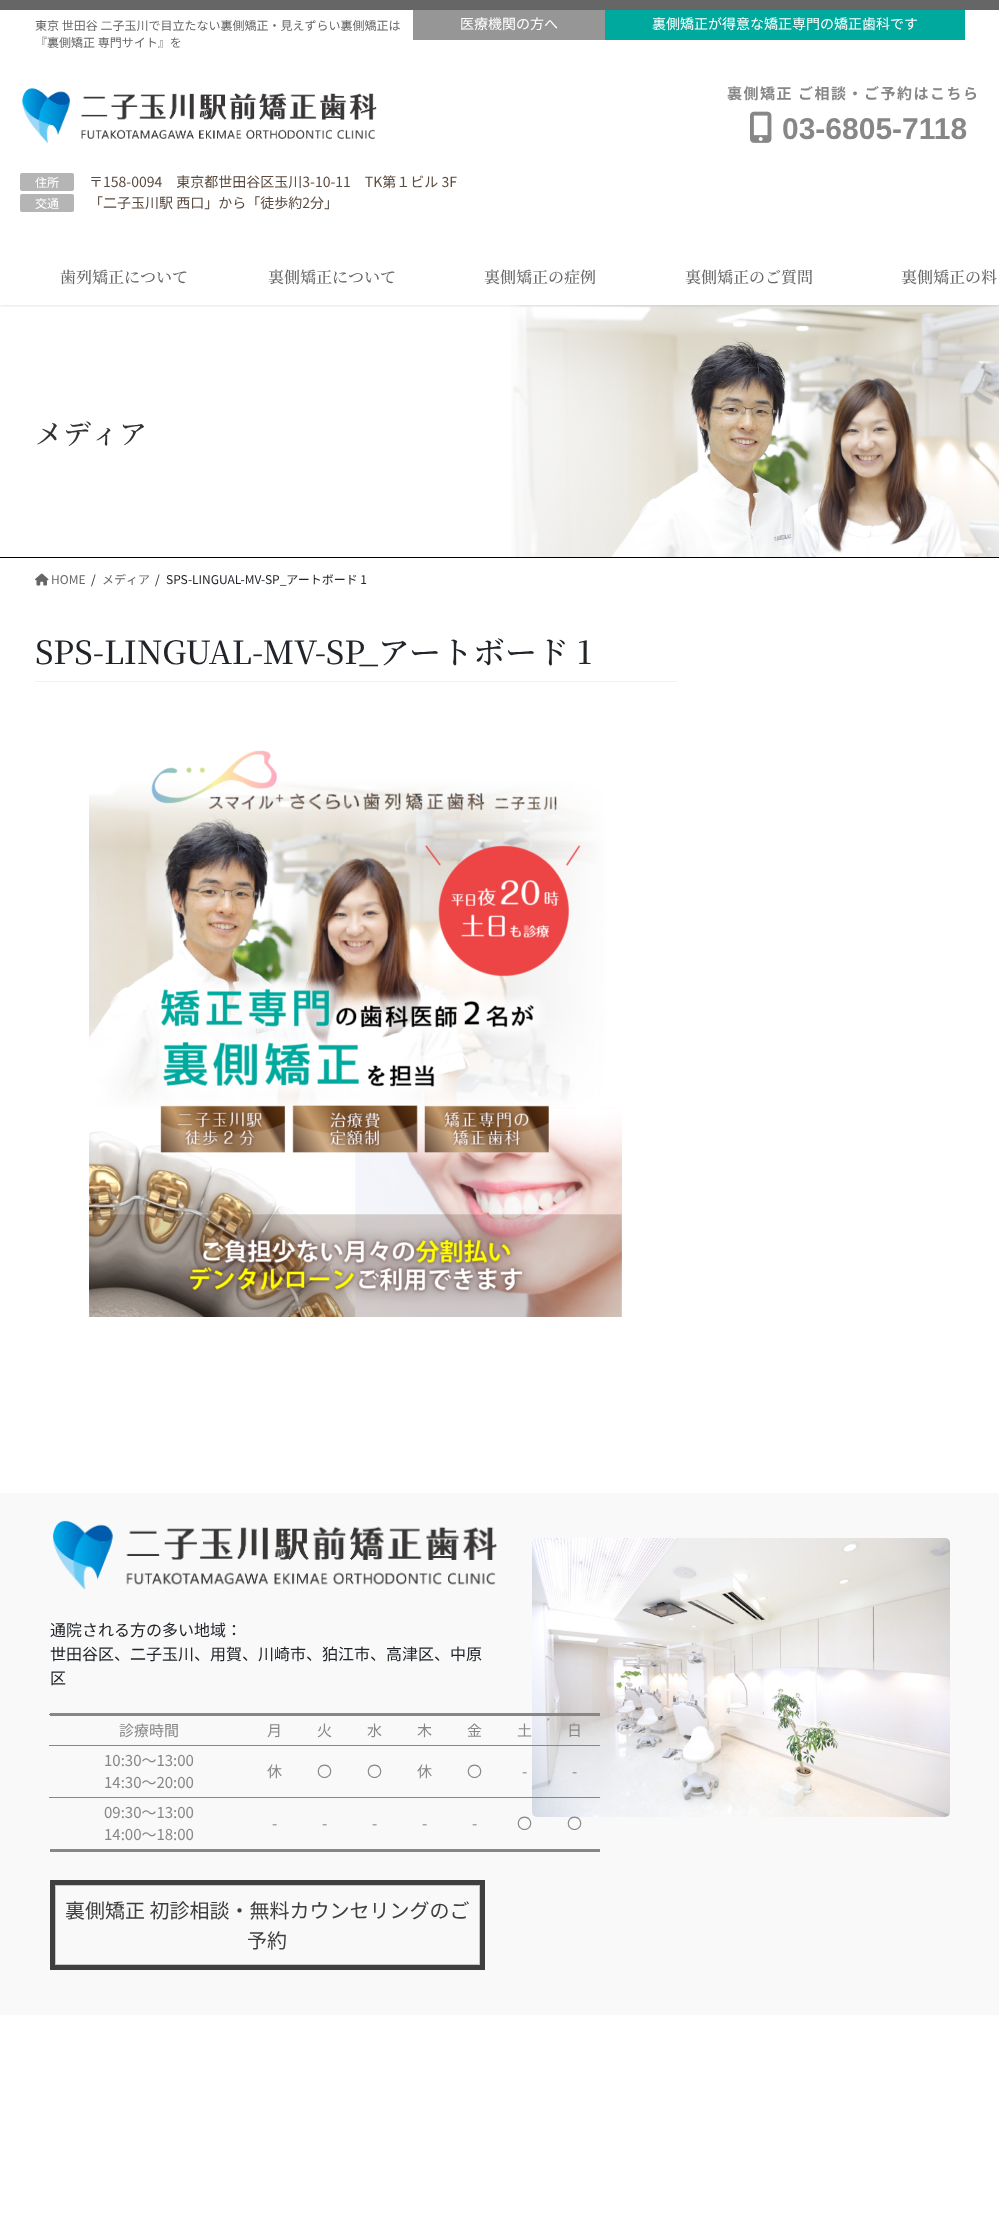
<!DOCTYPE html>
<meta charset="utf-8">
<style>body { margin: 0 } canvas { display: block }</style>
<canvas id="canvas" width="999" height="2225"></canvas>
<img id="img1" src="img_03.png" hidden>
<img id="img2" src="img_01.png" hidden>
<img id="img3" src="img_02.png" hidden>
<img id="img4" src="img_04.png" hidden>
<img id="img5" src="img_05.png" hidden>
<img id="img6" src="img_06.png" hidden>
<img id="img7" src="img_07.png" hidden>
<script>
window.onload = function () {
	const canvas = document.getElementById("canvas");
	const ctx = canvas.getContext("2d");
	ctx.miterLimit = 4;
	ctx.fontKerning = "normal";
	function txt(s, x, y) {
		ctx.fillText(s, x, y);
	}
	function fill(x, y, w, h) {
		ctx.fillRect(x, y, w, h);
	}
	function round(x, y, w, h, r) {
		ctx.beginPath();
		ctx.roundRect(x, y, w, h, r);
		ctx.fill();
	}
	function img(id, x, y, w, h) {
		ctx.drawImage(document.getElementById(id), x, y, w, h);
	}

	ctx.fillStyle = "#FFFFFF";
	fill(0, 0, 999, 2225);
	img("img1", 511, 305, 488, 252);
	ctx.save();
	ctx.beginPath();
	ctx.rect(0, 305, 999, 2);
	ctx.clip();
	ctx.fillStyle = "rgba(0, 0, 0, 0.1)";
	ctx.filter = "blur(1.5px)";
	ctx.beginPath();
	ctx.rect(0, 1, 999, 305);
	ctx.fill();
	ctx.filter = "none";
	ctx.restore();
	ctx.fillStyle = "#666666";
	fill(0, 0, 999, 10);
	ctx.fillStyle = "#969696";
	fill(413, 10, 192, 30);
	ctx.fillStyle = "#00A99D";
	fill(605, 10, 360, 30);
	img("img2", 22, 88, 355, 56);
	img("img3", 750, 111, 22, 32);
	ctx.fillStyle = "#B5B5B5";
	round(20, 173, 54, 18, 2);
	round(20, 194, 54, 18, 2);
	ctx.fillStyle = "#000000";
	fill(0, 557, 999, 1);
	img("img4", 35, 573, 14, 13);
	ctx.fillStyle = "#F2F2F2";
	fill(35, 681, 642, 1);
	img("img5", 89, 750, 533, 567);
	ctx.fillStyle = "#F9F9F9";
	fill(0, 1493, 999, 522);
	img("img6", 53, 1520, 444, 70);
	img("img7", 532, 1538, 418, 279);
	ctx.fillStyle = "#878787";
	fill(50, 1713, 550, 3);
	fill(50, 1849, 550, 3);
	fill(49, 1714, 1, 1);
	fill(49, 1745, 551, 1);
	fill(49, 1797, 551, 1);
	ctx.strokeStyle = "#C7C7C7";
	ctx.strokeRect(55.5, 1885.5, 424, 79);
	ctx.strokeStyle = "#3F3F3F";
	ctx.lineWidth = 5;
	ctx.strokeRect(52.5, 1882.5, 430, 85);
	ctx.font = "12px Noto Sans JP";
	ctx.fillStyle = "#666666";
	txt("東京 世田谷 二子玉川で目立たない裏側矯正・見えずらい裏側矯正は", 35, 30);
	txt("『裏側矯正 専門サイト』を", 35, 47);
	ctx.font = "14px Noto Sans JP";
	ctx.fillStyle = "#FFFFFF";
	txt("医療機関の方へ", 460, 29);
	txt("裏側矯正が得意な矯正専門の矯正歯科です", 652, 29);
	ctx.letterSpacing = "1.5px";
	ctx.font = "bold 15px Noto Sans JP";
	ctx.fillStyle = "#878787";
	txt("裏側矯正 ご相談・ご予約はこちら", 727, 99);
	ctx.letterSpacing = "0px";
	ctx.font = "bold 30px Liberation Sans";
	txt("03-6805-7118", 782, 139);
	ctx.font = "12px Noto Sans JP";
	ctx.fillStyle = "#FFFFFF";
	txt("住所", 35, 187);
	ctx.font = "14px Noto Sans JP";
	ctx.fillStyle = "#5A493E";
	txt("〒158-0094　東京都世田谷区玉川3-10-11　TK第１ビル 3F", 89, 187);
	ctx.font = "12px Noto Sans JP";
	ctx.fillStyle = "#FFFFFF";
	txt("交通", 35, 208);
	ctx.font = "14px Noto Sans JP";
	ctx.fillStyle = "#5A493E";
	txt("「二子玉川駅 西口」から「徒歩約2分」", 89, 208);
	ctx.font = "200 16px Noto Serif JP";
	ctx.fillStyle = "#666666";
	txt("歯列矯正について", 60, 283);
	txt("裏側矯正について", 268, 283);
	txt("裏側矯正の症例", 484, 283);
	txt("裏側矯正のご質問", 685, 283);
	txt("裏側矯正の料", 901, 283);
	ctx.font = "200 28px Noto Serif JP";
	ctx.fillStyle = "#333333";
	txt("メディア", 35, 444);
	ctx.font = "12px Noto Sans JP";
	ctx.fillStyle = "#666666";
	txt("HOME", 51, 584);
	ctx.fillStyle = "#212529";
	txt("/", 91, 584);
	ctx.fillStyle = "#666666";
	txt("メディア", 102, 584);
	ctx.fillStyle = "#212529";
	txt("/", 155, 584);
	txt("SPS-LINGUAL-MV-SP_アートボード 1", 166, 584);
	ctx.font = "200 32px Noto Serif JP";
	txt("SPS-LINGUAL-MV-SP_アートボード 1", 35, 664);
	ctx.font = "16px Noto Sans JP";
	txt("通院される方の多い地域：", 50, 1636);
	txt("世田谷区、二子玉川、用賀、川崎市、狛江市、高津区、中原", 50, 1660);
	txt("区", 50, 1684);
	ctx.font = "15px Noto Sans JP";
	ctx.fillStyle = "#878787";
	txt("診療時間", 119, 1736);
	txt("月", 267, 1736);
	txt("火", 317, 1736);
	txt("水", 367, 1736);
	txt("木", 417, 1736);
	txt("金", 467, 1736);
	txt("土", 517, 1736);
	txt("日", 567, 1736);
	txt("10:30～13:00", 104, 1766);
	txt("14:30～20:00", 104, 1788);
	txt("休", 267, 1777);
	txt("〇", 317, 1777);
	txt("〇", 367, 1777);
	txt("休", 417, 1777);
	txt("〇", 467, 1777);
	txt("-", 522, 1777);
	txt("-", 572, 1777);
	txt("09:30～13:00", 104, 1818);
	txt("14:00～18:00", 104, 1840);
	txt("-", 272, 1829);
	txt("-", 322, 1829);
	txt("-", 372, 1829);
	txt("-", 422, 1829);
	txt("-", 472, 1829);
	txt("〇", 517, 1829);
	txt("〇", 567, 1829);
	ctx.font = "20px Noto Sans JP";
	ctx.fillStyle = "#3F3F3F";
	txt("裏側矯正 初診相談・無料カウンセリングのご", 65, 1918);
	txt("予約", 247, 1948);
};
</script>
